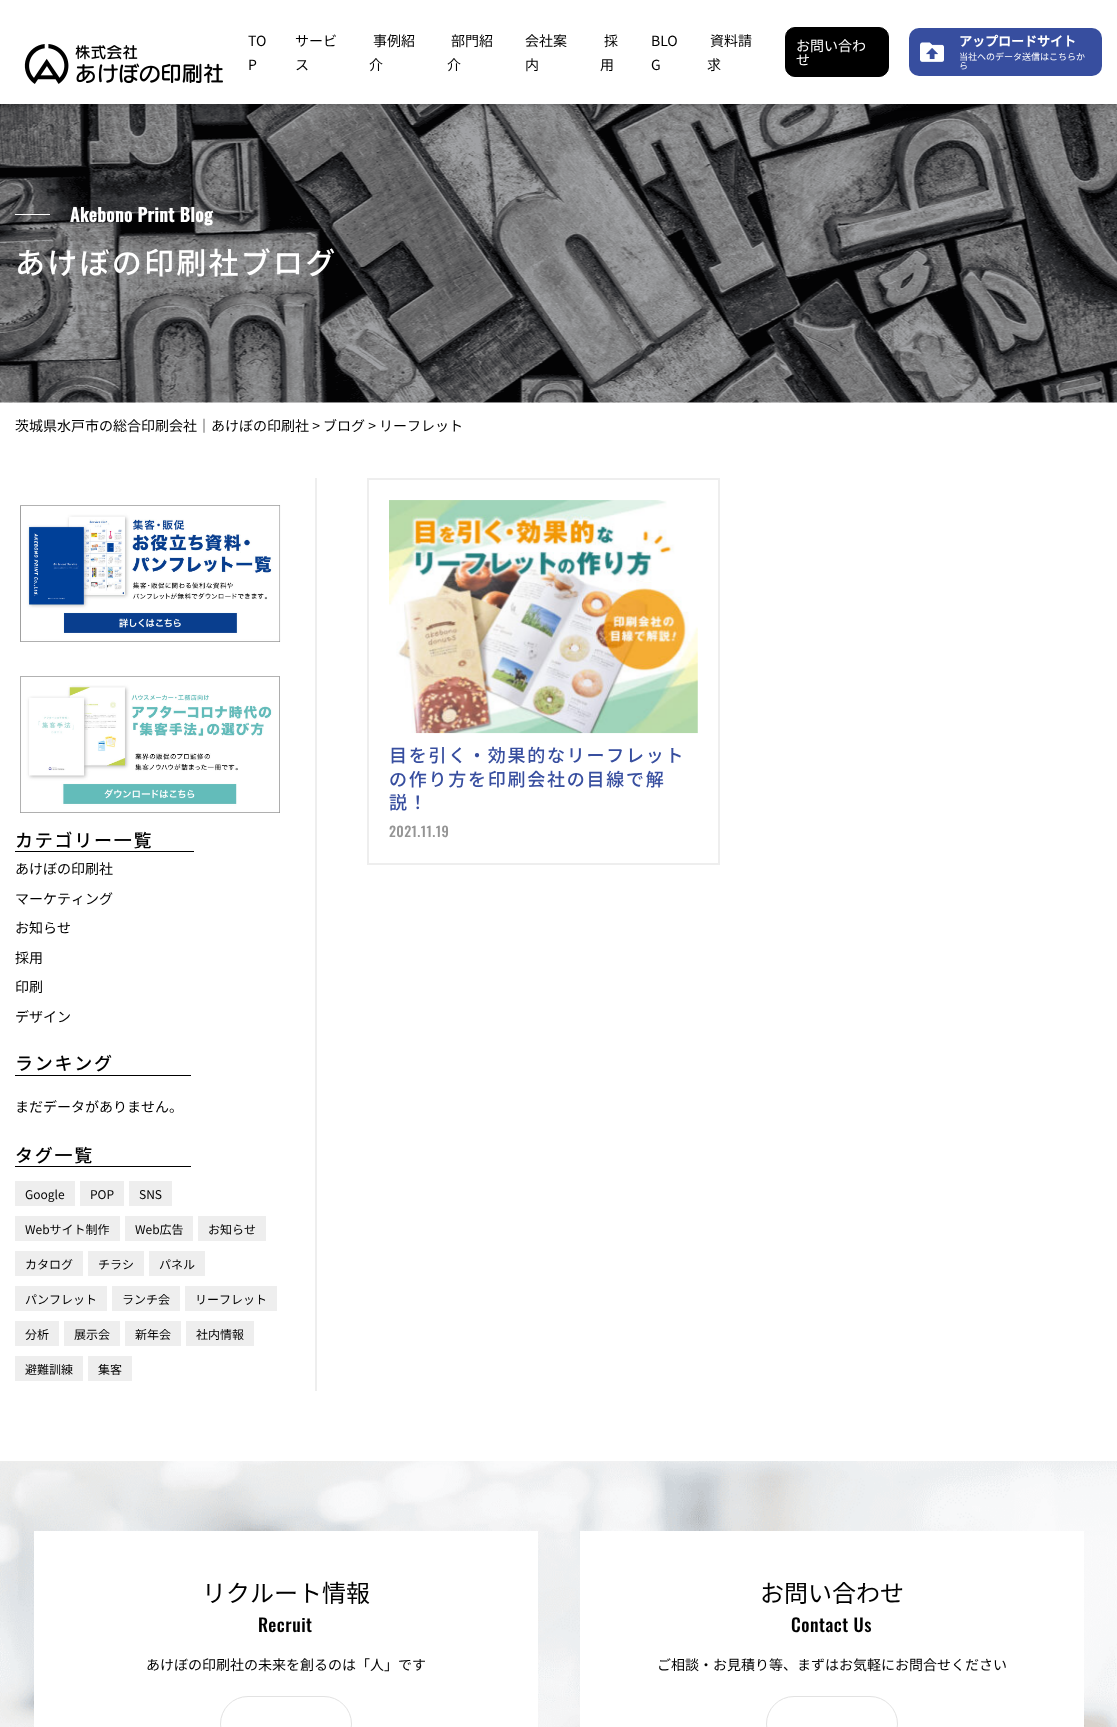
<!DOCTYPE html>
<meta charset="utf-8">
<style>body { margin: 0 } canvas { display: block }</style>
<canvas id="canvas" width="1117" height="1727"></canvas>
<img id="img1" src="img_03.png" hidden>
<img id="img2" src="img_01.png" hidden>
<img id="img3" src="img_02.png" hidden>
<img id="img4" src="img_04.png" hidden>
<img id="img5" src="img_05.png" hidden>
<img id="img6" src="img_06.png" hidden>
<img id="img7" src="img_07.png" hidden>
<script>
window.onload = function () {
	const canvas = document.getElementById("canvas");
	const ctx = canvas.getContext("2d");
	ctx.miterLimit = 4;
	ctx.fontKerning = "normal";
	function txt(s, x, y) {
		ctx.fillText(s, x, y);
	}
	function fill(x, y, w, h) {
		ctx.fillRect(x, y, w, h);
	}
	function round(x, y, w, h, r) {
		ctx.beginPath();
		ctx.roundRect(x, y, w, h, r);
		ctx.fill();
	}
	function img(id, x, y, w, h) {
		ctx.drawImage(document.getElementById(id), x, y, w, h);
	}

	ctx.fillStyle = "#FFFFFF";
	fill(0, 0, 1117, 1727);
	img("img1", 0, 104, 1117, 299);
	ctx.fillStyle = "rgba(0, 0, 0, 0.2)";
	ctx.filter = "blur(2px)";
	ctx.beginPath();
	ctx.rect(0, 2, 1117, 104);
	ctx.fill();
	ctx.filter = "none";
	ctx.fillStyle = "#FFFFFF";
	fill(0, 0, 1117, 104);
	img("img2", 24, 44, 199, 40);
	ctx.fillStyle = "#000000";
	ctx.beginPath();
	ctx.roundRect(785.5, 27.5, 103, 49, 9.5);
	ctx.fill();
	ctx.strokeStyle = "#000000";
	ctx.stroke();
	ctx.fillStyle = "#374E9F";
	round(909, 28, 193, 48, 10);
	img("img3", 920, 42, 24, 20);
	ctx.fillStyle = "#FFFFFF";
	fill(15, 214, 35, 1);
	ctx.fillStyle = "#EEEEEE";
	fill(315, 478, 2, 913);
	ctx.strokeStyle = "#EEEEEE";
	ctx.lineWidth = 2;
	ctx.strokeRect(368, 479, 351, 385);
	img("img4", 389, 500, 309, 234);
	img("img5", 20, 505, 261, 137);
	img("img6", 20, 676, 260, 137);
	ctx.fillStyle = "#000000";
	fill(15, 851, 179, 1);
	fill(15, 1075, 176, 1);
	fill(15, 1166, 176, 1);
	ctx.fillStyle = "#EEEEEE";
	fill(15, 1181, 60, 25);
	fill(80, 1181, 44, 25);
	fill(129, 1181, 43, 25);
	fill(15, 1216, 105, 25);
	fill(125, 1216, 68, 25);
	fill(198, 1216, 68, 25);
	fill(15, 1251, 68, 25);
	fill(88, 1251, 56, 25);
	fill(149, 1251, 56, 25);
	fill(15, 1286, 92, 25);
	fill(112, 1286, 68, 25);
	fill(185, 1286, 92, 25);
	fill(15, 1321, 44, 25);
	fill(64, 1321, 56, 25);
	fill(125, 1321, 56, 25);
	fill(186, 1321, 68, 25);
	fill(15, 1356, 68, 25);
	fill(88, 1356, 44, 25);
	img("img7", 0, 1461, 1117, 266);
	ctx.fillStyle = "#FFFFFF";
	fill(34, 1531, 504, 196);
	ctx.beginPath();
	ctx.roundRect(220.5, 1696.5, 131, 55, 27.5);
	ctx.strokeStyle = "#E2E2E2";
	ctx.lineWidth = 1;
	ctx.stroke();
	fill(580, 1531, 504, 196);
	ctx.beginPath();
	ctx.roundRect(766.5, 1696.5, 131, 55, 27.5);
	ctx.stroke();
	ctx.font = "14px Noto Sans JP";
	ctx.fillStyle = "#000000";
	txt("TO", 248, 46);
	txt("P", 248, 70);
	txt("サービ", 295, 46);
	txt("ス", 295, 70);
	txt("事例紹", 373, 46);
	txt("介", 369, 70);
	txt("部門紹", 451, 46);
	txt("介", 447, 70);
	txt("会社案", 525, 46);
	txt("内", 525, 70);
	txt("採", 604, 46);
	txt("用", 600, 70);
	txt("BLO", 651, 46);
	txt("G", 651, 70);
	txt("資料請", 710, 46);
	txt("求", 707, 70);
	ctx.fillStyle = "#FFFFFF";
	txt("お問い合わ", 796, 51);
	txt("せ", 796, 65);
	ctx.font = "bold 13px Noto Sans JP";
	txt("アップロードサイト", 959, 46);
	ctx.font = "9px Noto Sans JP";
	txt("当社へのデータ送信はこちらか", 959, 60);
	txt("ら", 959, 69);
	ctx.letterSpacing = "0.5px";
	ctx.font = "bold 18px Oswald";
	txt("Akebono Print Blog", 70, 222);
	ctx.letterSpacing = "2.25px";
	ctx.font = "500 30px Noto Sans JP";
	txt("あけぼの印刷社ブログ", 15, 274);
	ctx.letterSpacing = "0px";
	ctx.font = "14px Noto Sans JP";
	ctx.fillStyle = "#000000";
	txt("茨城県水戸市の総合印刷会社｜あけぼの印刷社 > ブログ > リーフレット", 15, 431);
	ctx.letterSpacing = "1.75px";
	ctx.font = "500 18px Noto Sans JP";
	ctx.fillStyle = "#374E9F";
	txt("目を引く・効果的なリーフレット", 389, 762);
	txt("の作り方を印刷会社の目線で解", 389, 786);
	txt("説！", 389, 809);
	ctx.letterSpacing = "0.4px";
	ctx.font = "500 14px Oswald";
	ctx.fillStyle = "#959595";
	txt("2021.11.19", 389, 837);
	ctx.letterSpacing = "1.75px";
	ctx.font = "500 18px Noto Sans JP";
	ctx.fillStyle = "#000000";
	txt("カテゴリー一覧", 15, 847);
	ctx.letterSpacing = "0px";
	ctx.font = "14px Noto Sans JP";
	txt("あけぼの印刷社", 15, 874);
	txt("マーケティング", 15, 904);
	txt("お知らせ", 15, 933);
	txt("採用", 15, 963);
	txt("印刷", 15, 992);
	txt("デザイン", 15, 1022);
	ctx.letterSpacing = "1.75px";
	ctx.font = "500 18px Noto Sans JP";
	txt("ランキング", 15, 1070);
	ctx.letterSpacing = "0px";
	ctx.font = "14px Noto Sans JP";
	txt("まだデータがありません。", 15, 1112);
	ctx.letterSpacing = "1.75px";
	ctx.font = "500 18px Noto Sans JP";
	txt("タグ一覧", 15, 1162);
	ctx.letterSpacing = "0px";
	ctx.font = "12px Noto Sans JP";
	txt("Google", 25, 1199);
	txt("POP", 90, 1199);
	txt("SNS", 139, 1199);
	txt("Webサイト制作", 25, 1234);
	txt("Web広告", 135, 1234);
	txt("お知らせ", 208, 1234);
	txt("カタログ", 25, 1269);
	txt("チラシ", 98, 1269);
	txt("パネル", 159, 1269);
	txt("パンフレット", 25, 1304);
	txt("ランチ会", 122, 1304);
	txt("リーフレット", 195, 1304);
	txt("分析", 25, 1339);
	txt("展示会", 74, 1339);
	txt("新年会", 135, 1339);
	txt("社内情報", 196, 1339);
	txt("避難訓練", 25, 1374);
	txt("集客", 98, 1374);
	ctx.font = "24px Noto Sans JP";
	txt("リクルート情報", 202, 1602);
	ctx.letterSpacing = "0.5px";
	ctx.font = "500 18px Oswald";
	txt("Recruit", 258, 1632);
	ctx.letterSpacing = "0px";
	ctx.font = "14px Noto Sans JP";
	txt("あけぼの印刷社の未来を創るのは「人」です", 146, 1670);
	ctx.font = "24px Noto Sans JP";
	txt("お問い合わせ", 760, 1602);
	ctx.letterSpacing = "0.5px";
	ctx.font = "500 18px Oswald";
	txt("Contact Us", 791, 1632);
	ctx.letterSpacing = "0px";
	ctx.font = "14px Noto Sans JP";
	txt("ご相談・お見積り等、まずはお気軽にお問合せください", 657, 1670);
};
</script>
